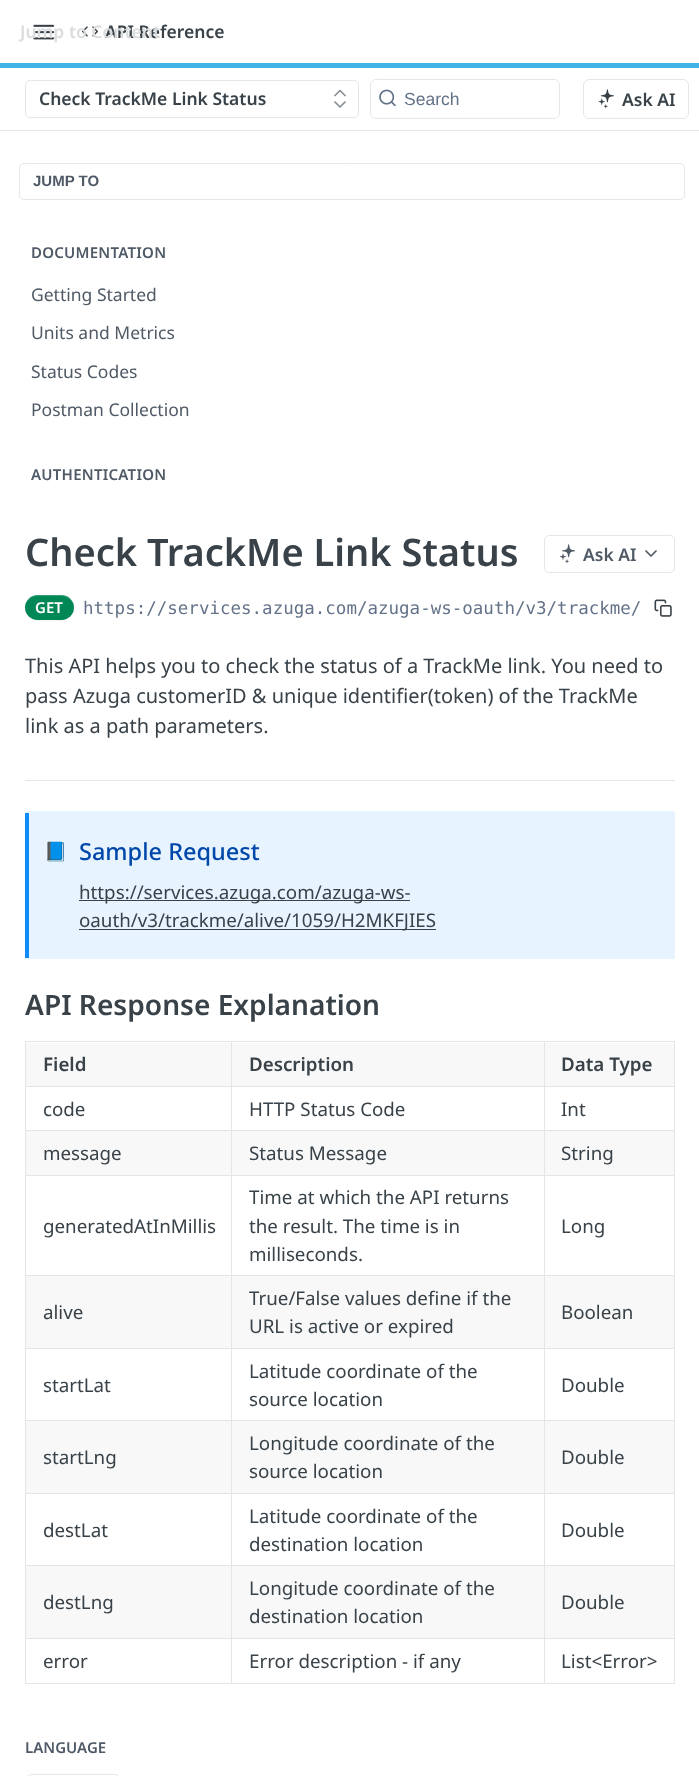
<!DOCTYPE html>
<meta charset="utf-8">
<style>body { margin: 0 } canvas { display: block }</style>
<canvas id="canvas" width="699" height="1776"></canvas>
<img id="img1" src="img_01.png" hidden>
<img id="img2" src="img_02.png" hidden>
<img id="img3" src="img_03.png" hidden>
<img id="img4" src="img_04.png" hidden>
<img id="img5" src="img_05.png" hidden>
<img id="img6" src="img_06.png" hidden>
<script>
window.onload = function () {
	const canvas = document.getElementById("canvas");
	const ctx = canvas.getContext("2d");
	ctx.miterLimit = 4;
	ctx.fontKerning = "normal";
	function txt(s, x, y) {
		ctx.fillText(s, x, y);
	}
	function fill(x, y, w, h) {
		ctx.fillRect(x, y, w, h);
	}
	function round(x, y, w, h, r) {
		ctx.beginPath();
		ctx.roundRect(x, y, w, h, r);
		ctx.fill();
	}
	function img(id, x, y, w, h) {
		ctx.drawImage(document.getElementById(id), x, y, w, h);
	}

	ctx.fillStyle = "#FFFFFF";
	fill(0, 0, 699, 1776);
	ctx.fillStyle = "#E6E6E6";
	fill(0, 130, 699, 1);
	ctx.fillStyle = "#40B4E5";
	fill(0, 63, 699, 5);
	img("img1", 33, 24, 22, 16);
	img("img2", 82, 26, 16, 11);
	ctx.beginPath();
	ctx.roundRect(25.5, 80.5, 333, 37, 4.5);
	ctx.strokeStyle = "#E6E6E6";
	ctx.stroke();
	ctx.beginPath();
	ctx.moveTo(335, 102);
	ctx.lineTo(340, 107);
	ctx.lineTo(345, 102);
	ctx.moveTo(345, 95.5);
	ctx.lineTo(340, 90.5);
	ctx.lineTo(335, 95.5);
	ctx.strokeStyle = "#888E91";
	ctx.lineWidth = 1.7;
	ctx.lineCap = "round";
	ctx.lineJoin = "round";
	ctx.stroke();
	ctx.beginPath();
	ctx.roundRect(370.5, 79.5, 189, 39, 5.5);
	ctx.strokeStyle = "#E6E6E6";
	ctx.lineWidth = 1;
	ctx.lineJoin = "miter";
	ctx.stroke();
	ctx.fillStyle = "#FFFFFF";
	round(371, 80, 188, 38, 5);
	img("img3", 379, 89, 17, 18);
	ctx.beginPath();
	ctx.roundRect(583.5, 79.5, 105, 39, 5.5);
	ctx.stroke();
	img("img4", 598, 89, 16, 20);
	ctx.beginPath();
	ctx.roundRect(19.5, 163.5, 665, 36, 4.5);
	ctx.stroke();
	ctx.fillStyle = "#E6E6E6";
	fill(25, 780, 650, 1);
	ctx.beginPath();
	ctx.roundRect(544.5, 535.5, 130, 37, 4.5);
	ctx.stroke();
	img("img5", 559, 544, 17, 20);
	ctx.beginPath();
	ctx.moveTo(646, 551);
	ctx.lineTo(651, 556);
	ctx.lineTo(656, 551);
	ctx.strokeStyle = "#4F5A66";
	ctx.lineWidth = 1.7;
	ctx.lineJoin = "round";
	ctx.stroke();
	ctx.fillStyle = "rgba(0, 0, 0, 0.05)";
	ctx.filter = "blur(1px)";
	ctx.beginPath();
	ctx.roundRect(25, 596, 49, 25, 12.5);
	ctx.fill();
	ctx.filter = "none";
	ctx.fillStyle = "#008756";
	round(25, 595, 49, 25, 12.5);
	ctx.fillStyle = "rgba(255, 255, 255, 0.2)";
	ctx.beginPath();
	ctx.moveTo(38, 596);
	ctx.lineTo(61, 596);
	ctx.bezierCurveTo(68, 596, 74, 602, 74, 608);
	ctx.bezierCurveTo(74, 606, 73, 603, 72, 601);
	ctx.bezierCurveTo(67, 593, 57, 595, 50, 595);
	ctx.bezierCurveTo(42, 595, 32, 593, 27, 601);
	ctx.bezierCurveTo(26, 603, 25, 606, 25, 608);
	ctx.bezierCurveTo(25, 602, 31, 596, 38, 596);
	ctx.closePath();
	ctx.fill();
	img("img6", 654, 599, 18, 18);
	ctx.fillStyle = "#E7F4FF";
	round(25, 811, 650, 148, 2.5);
	ctx.fillStyle = "#118CFD";
	fill(25, 813, 4, 145);
	ctx.fillStyle = "#384248";
	fill(79, 900, 331, 1);
	fill(79, 929, 357, 1);
	ctx.fillStyle = "#E5E5E5";
	fill(25, 1041, 650, 1);
	fill(674, 1041, 1, 643);
	fill(25, 1683, 650, 1);
	fill(25, 1041, 1, 643);
	ctx.fillStyle = "#F8F8F8";
	fill(26, 1043, 648, 43);
	ctx.fillStyle = "#E5E5E5";
	fill(544, 1086, 131, 1);
	fill(25, 1130, 650, 1);
	ctx.fillStyle = "#F8F8F8";
	fill(26, 1131, 648, 44);
	ctx.fillStyle = "#E5E5E5";
	fill(25, 1175, 650, 1);
	ctx.fillStyle = "#F8F8F8";
	fill(26, 1276, 648, 72);
	ctx.fillStyle = "#E5E5E5";
	fill(25, 1275, 650, 1);
	fill(25, 1348, 650, 1);
	ctx.fillStyle = "#F8F8F8";
	fill(26, 1421, 648, 72);
	ctx.fillStyle = "#E5E5E5";
	fill(25, 1420, 650, 1);
	fill(25, 1493, 650, 1);
	ctx.fillStyle = "#F8F8F8";
	fill(26, 1566, 648, 72);
	ctx.fillStyle = "#E5E5E5";
	fill(25, 1565, 650, 1);
	fill(25, 1638, 650, 1);
	fill(544, 1130, 1, 554);
	fill(544, 1086, 1, 45);
	fill(231, 1086, 314, 1);
	fill(231, 1130, 1, 554);
	fill(231, 1086, 1, 45);
	fill(25, 1086, 208, 1);
	fill(231, 1041, 1, 47);
	fill(544, 1041, 1, 47);
	ctx.beginPath();
	ctx.roundRect(25.5, 1774.5, 95, 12, 9.5);
	ctx.strokeStyle = "#E6E6E6";
	ctx.lineWidth = 1;
	ctx.lineJoin = "miter";
	ctx.stroke();
	ctx.font = "600 17.5px Noto Sans";
	ctx.fillStyle = "#384248";
	txt("API Reference", 105, 38);
	ctx.fillStyle = "#DADCDD";
	txt("Jump to Content", 20, 38);
	ctx.fillStyle = "#384248";
	txt("Check TrackMe Link Status", 39, 105);
	ctx.font = "17.5px Liberation Sans";
	ctx.fillStyle = "#637288";
	txt("Search", 404, 105);
	ctx.font = "600 17.5px Noto Sans";
	ctx.fillStyle = "#384248";
	txt("Ask AI", 622, 106);
	ctx.font = "bold 15px Liberation Sans";
	ctx.fillStyle = "#4F5A66";
	txt("JUMP TO", 33, 186);
	ctx.letterSpacing = "0.25px";
	ctx.font = "600 15px Noto Sans";
	txt("DOCUMENTATION", 31, 258);
	ctx.letterSpacing = "0px";
	ctx.font = "17.5px Noto Sans";
	txt("Getting Started", 31, 301);
	txt("Units and Metrics", 31, 339);
	txt("Status Codes", 31, 378);
	txt("Postman Collection", 31, 416);
	ctx.letterSpacing = "0.25px";
	ctx.font = "600 15px Noto Sans";
	txt("AUTHENTICATION", 31, 480);
	ctx.letterSpacing = "0px";
	ctx.font = "600 38px Noto Sans";
	ctx.fillStyle = "#384248";
	txt("Check TrackMe Link Status", 25, 566);
	ctx.font = "600 17.5px Noto Sans";
	ctx.fillStyle = "#4F5A66";
	txt("Ask AI", 583, 561);
	ctx.font = "600 15px Noto Sans";
	ctx.fillStyle = "#FFFFFF";
	txt("GET", 35, 613);
	ctx.font = "17.5px DejaVu Sans Mono";
	ctx.fillStyle = "#637288";
	txt("https://services.azuga.com/azuga-ws-oauth/v3/trackme/", 83, 614);
	ctx.font = "20px Noto Sans";
	ctx.fillStyle = "#384248";
	txt("This API helps you to check the status of a TrackMe link. You need to", 25, 673);
	txt("pass Azuga customerID & unique identifier(token) of the TrackMe", 25, 703);
	txt("link as a path parameters.", 25, 733);
	ctx.font = "18.75px Noto Color Emoji";
	txt("📘", 44, 858);
	ctx.font = "500 23.5px Noto Sans";
	ctx.fillStyle = "#0047AA";
	txt("Sample Request", 79, 860);
	ctx.font = "18.75px Noto Sans";
	ctx.fillStyle = "#384248";
	txt("https://services.azuga.com/azuga-ws-", 79, 899);
	txt("oauth/v3/trackme/alive/1059/H2MKFJIES", 79, 927);
	ctx.font = "600 28.1px Noto Sans";
	txt("API Response Explanation", 25, 1015);
	ctx.font = "600 18.75px Noto Sans";
	txt("Field", 43, 1071);
	txt("Description", 249, 1071);
	txt("Data Type", 561, 1071);
	ctx.font = "18.75px Noto Sans";
	txt("code", 43, 1116);
	txt("HTTP Status Code", 249, 1116);
	txt("Int", 561, 1116);
	txt("message", 43, 1160);
	txt("Status Message", 249, 1160);
	txt("String", 561, 1160);
	txt("generatedAtInMillis", 43, 1233);
	txt("Time at which the API returns", 249, 1204);
	txt("the result. The time is in", 249, 1233);
	txt("milliseconds.", 249, 1261);
	txt("Long", 561, 1233);
	txt("alive", 43, 1319);
	txt("True/False values define if the", 249, 1305);
	txt("URL is active or expired", 249, 1333);
	txt("Boolean", 561, 1319);
	txt("startLat", 43, 1392);
	txt("Latitude coordinate of the", 249, 1378);
	txt("source location", 249, 1406);
	txt("Double", 561, 1392);
	txt("startLng", 43, 1464);
	txt("Longitude coordinate of the", 249, 1450);
	txt("source location", 249, 1478);
	txt("Double", 561, 1464);
	txt("destLat", 43, 1537);
	txt("Latitude coordinate of the", 249, 1523);
	txt("destination location", 249, 1551);
	txt("Double", 561, 1537);
	txt("destLng", 43, 1609);
	txt("Longitude coordinate of the", 249, 1595);
	txt("destination location", 249, 1623);
	txt("Double", 561, 1609);
	txt("error", 43, 1668);
	txt("Error description - if any", 249, 1668);
	txt("List<Error>", 561, 1668);
	ctx.font = "600 15px Noto Sans";
	ctx.fillStyle = "#4F5A66";
	txt("LANGUAGE", 25, 1753);
};
</script>
